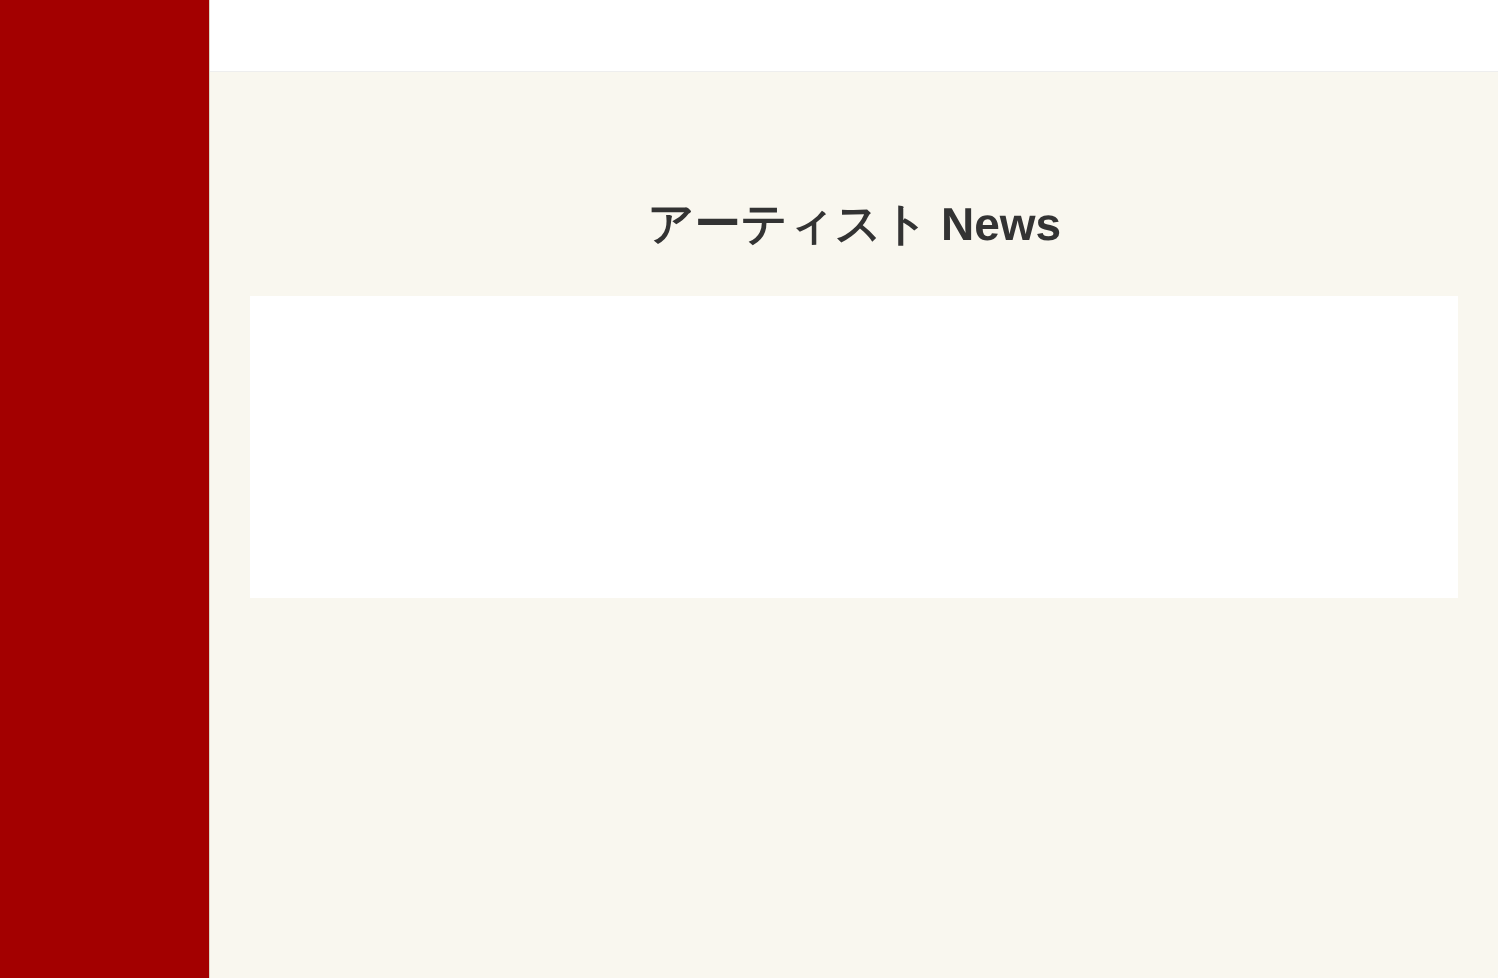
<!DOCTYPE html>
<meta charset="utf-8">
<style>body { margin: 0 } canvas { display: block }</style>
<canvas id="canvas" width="1498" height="978"></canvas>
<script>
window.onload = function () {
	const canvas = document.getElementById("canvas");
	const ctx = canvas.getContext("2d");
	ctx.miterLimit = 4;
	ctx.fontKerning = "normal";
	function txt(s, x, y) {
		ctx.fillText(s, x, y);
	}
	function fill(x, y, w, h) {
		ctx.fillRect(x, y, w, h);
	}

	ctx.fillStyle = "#F9F7EF";
	fill(0, 0, 1498, 978);
	ctx.fillStyle = "#A30000";
	fill(0, 0, 209, 978);
	ctx.fillStyle = "#DAD6C6";
	fill(209, 0, 1, 978);
	ctx.fillStyle = "#FFFFFF";
	fill(210, 0, 1288, 71);
	ctx.fillStyle = "#EEEEEE";
	fill(210, 71, 1288, 1);
	ctx.fillStyle = "#FFFFFF";
	fill(250, 296, 1208, 302);
	ctx.font = "bold 46px WenQuanYi Zen Hei";
	ctx.fillStyle = "#333333";
	txt("アーティスト", 647, 240);
	ctx.font = "bold 46px Liberation Sans";
	txt("News", 941, 240);
};
</script>
